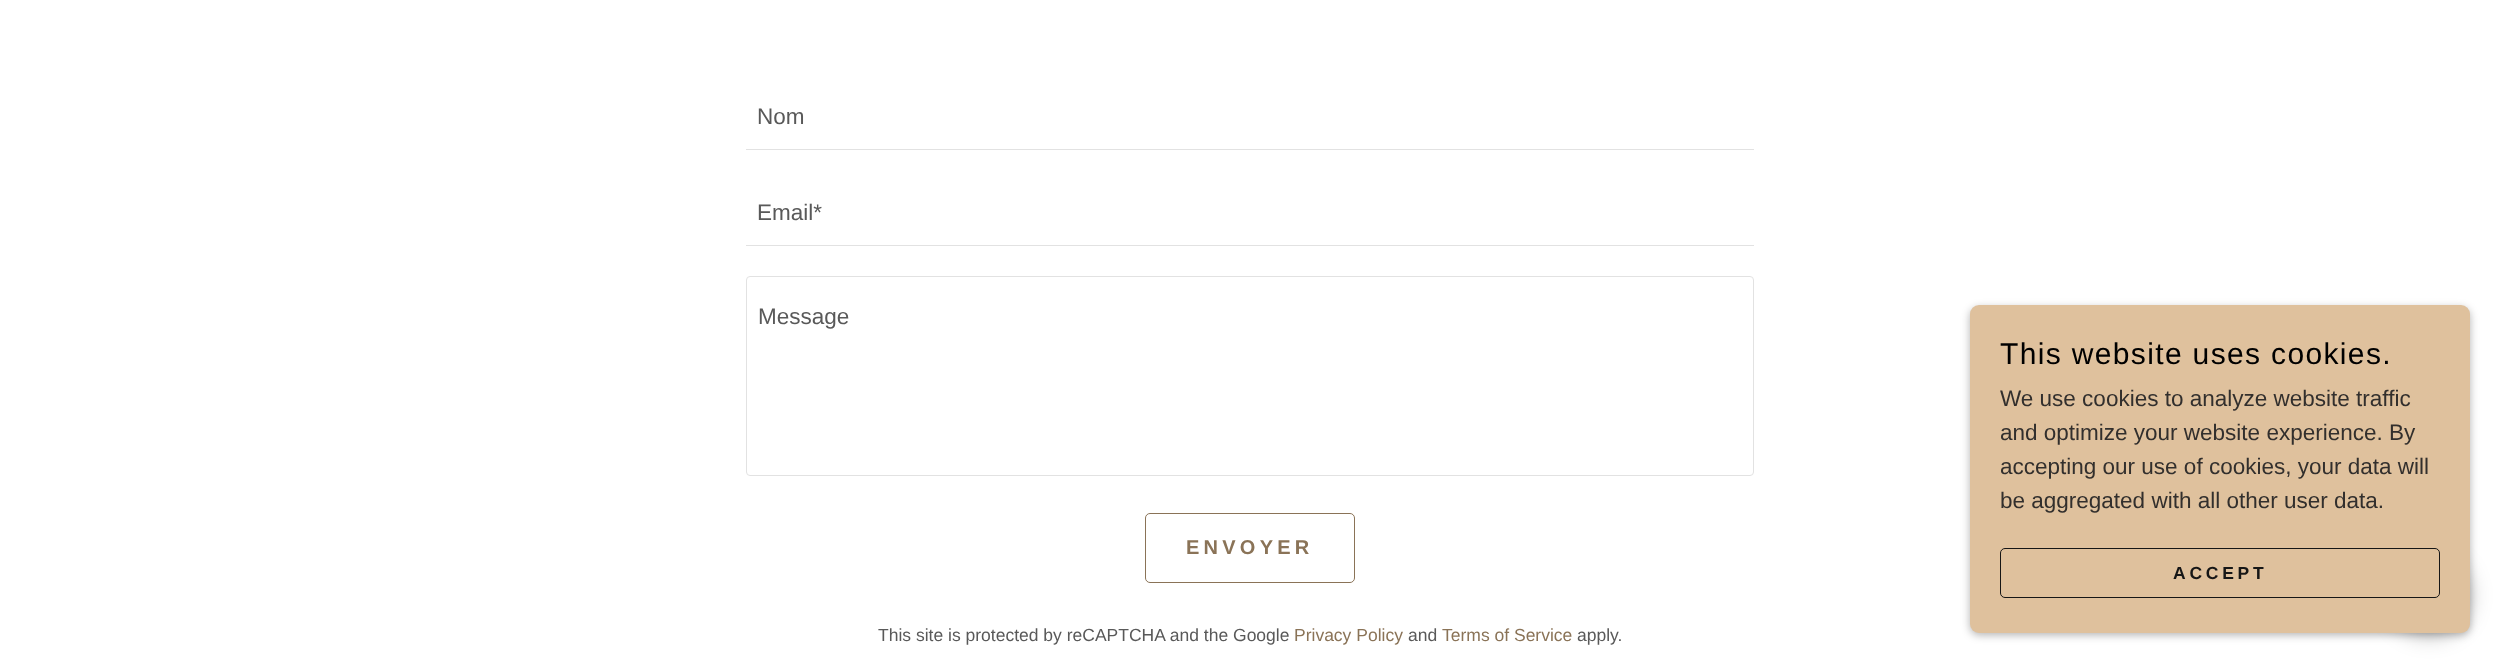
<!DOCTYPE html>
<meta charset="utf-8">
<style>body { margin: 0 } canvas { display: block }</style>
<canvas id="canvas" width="2500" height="662"></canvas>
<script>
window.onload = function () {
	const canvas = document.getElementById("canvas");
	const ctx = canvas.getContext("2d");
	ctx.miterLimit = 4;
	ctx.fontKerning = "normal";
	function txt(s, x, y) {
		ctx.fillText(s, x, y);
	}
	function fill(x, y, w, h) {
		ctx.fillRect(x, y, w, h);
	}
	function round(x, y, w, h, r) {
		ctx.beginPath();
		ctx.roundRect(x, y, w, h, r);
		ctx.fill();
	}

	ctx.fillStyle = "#FFFFFF";
	fill(0, 0, 2500, 662);
	ctx.fillStyle = "#E2E2E2";
	fill(746, 149, 1008, 1);
	fill(746, 245, 1008, 1);
	ctx.beginPath();
	ctx.roundRect(746.5, 276.5, 1007, 199, 3.5);
	ctx.strokeStyle = "#E2E2E2";
	ctx.stroke();
	ctx.beginPath();
	ctx.roundRect(1145.5, 513.5, 209, 69, 4.5);
	ctx.strokeStyle = "#8A7357";
	ctx.stroke();
	ctx.fillStyle = "rgba(0, 0, 0, 0.3)";
	ctx.filter = "blur(4px)";
	ctx.beginPath();
	ctx.roundRect(1970, 308, 500, 327, 9);
	ctx.fill();
	ctx.filter = "none";
	ctx.fillStyle = "rgba(0, 0, 0, 0.25)";
	ctx.filter = "blur(11px)";
	ctx.beginPath();
	ctx.roundRect(2389, 555, 81, 81, 40.5);
	ctx.fill();
	ctx.filter = "none";
	ctx.fillStyle = "#DFC19D";
	round(1970, 305, 500, 328, 9);
	ctx.beginPath();
	ctx.roundRect(2000.5, 548.5, 439, 49, 4.5);
	ctx.strokeStyle = "#161616";
	ctx.stroke();
	ctx.font = "22.5px Liberation Sans";
	ctx.fillStyle = "#595959";
	txt("Nom", 757, 124);
	txt("Email*", 757, 220);
	txt("Message", 758, 324);
	ctx.letterSpacing = "4.25px";
	ctx.font = "bold 20px Liberation Sans";
	ctx.fillStyle = "#8A7357";
	txt("ENVOYER", 1186, 554);
	ctx.letterSpacing = "0px";
	ctx.font = "17.5px Liberation Sans";
	ctx.fillStyle = "#595959";
	txt("This site is protected by reCAPTCHA and the Google", 878, 641);
	ctx.fillStyle = "#8A7357";
	txt("Privacy Policy", 1294, 641);
	ctx.fillStyle = "#595959";
	txt("and", 1408, 641);
	ctx.fillStyle = "#8A7357";
	txt("Terms of Service", 1442, 641);
	ctx.fillStyle = "#595959";
	txt("apply.", 1577, 641);
	ctx.letterSpacing = "1.35px";
	ctx.font = "30px Liberation Sans";
	ctx.fillStyle = "#000000";
	txt("This website uses cookies.", 2000, 364);
	ctx.letterSpacing = "0px";
	ctx.font = "22.5px Liberation Sans";
	ctx.fillStyle = "#322F2D";
	txt("We use cookies to analyze website traffic", 2000, 406);
	txt("and optimize your website experience. By", 2000, 440);
	txt("accepting our use of cookies, your data will", 2000, 474);
	txt("be aggregated with all other user data.", 2000, 508);
	ctx.letterSpacing = "3.75px";
	ctx.font = "bold 17.5px Liberation Sans";
	ctx.fillStyle = "#161616";
	txt("ACCEPT", 2173, 579);
};
</script>
